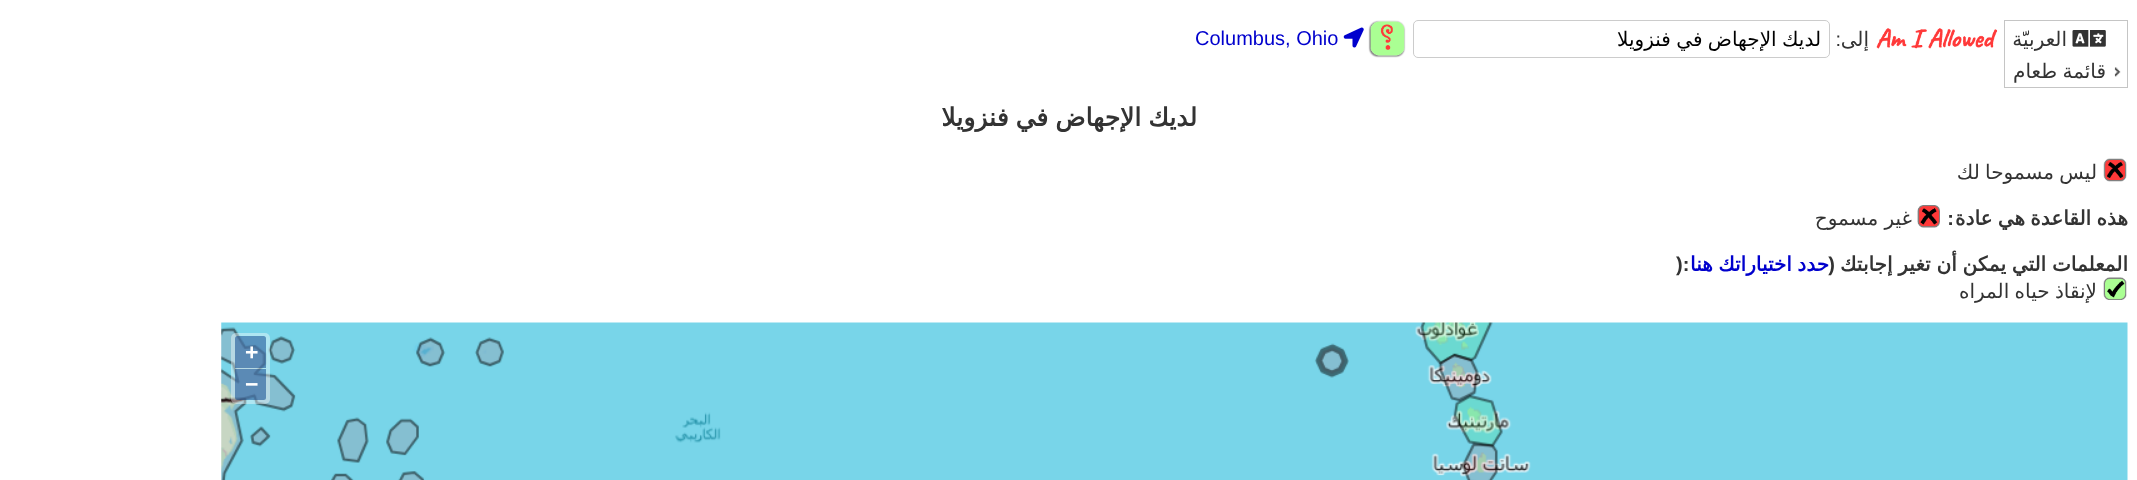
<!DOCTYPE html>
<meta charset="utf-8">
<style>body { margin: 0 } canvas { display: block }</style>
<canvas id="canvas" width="2137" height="480"></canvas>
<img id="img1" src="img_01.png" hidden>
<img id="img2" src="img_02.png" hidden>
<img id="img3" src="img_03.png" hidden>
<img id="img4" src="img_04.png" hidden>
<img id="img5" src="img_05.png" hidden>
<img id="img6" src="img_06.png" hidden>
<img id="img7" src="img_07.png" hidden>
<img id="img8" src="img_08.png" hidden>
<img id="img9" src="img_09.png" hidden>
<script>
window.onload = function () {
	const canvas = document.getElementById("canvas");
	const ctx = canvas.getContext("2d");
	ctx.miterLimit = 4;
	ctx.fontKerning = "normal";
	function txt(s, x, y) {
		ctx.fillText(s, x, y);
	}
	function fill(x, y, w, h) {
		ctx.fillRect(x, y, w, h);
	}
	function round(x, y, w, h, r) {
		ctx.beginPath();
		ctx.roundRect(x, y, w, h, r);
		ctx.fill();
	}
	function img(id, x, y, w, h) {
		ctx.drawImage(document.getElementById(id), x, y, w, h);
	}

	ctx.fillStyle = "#FFFFFF";
	fill(0, 0, 2137, 480);
	ctx.strokeStyle = "#C5C5C5";
	ctx.strokeRect(2004.5, 20.5, 123, 67);
	img("img1", 2072, 30, 34, 17);
	img("img2", 2114, 67, 7, 10);
	img("img3", 1876, 28, 122, 21);
	ctx.beginPath();
	ctx.roundRect(1413.5, 20.5, 416, 37, 4.5);
	ctx.strokeStyle = "#CCCCCC";
	ctx.stroke();
	img("img4", 1368, 20, 38, 38);
	img("img5", 1343, 27, 21, 21);
	img("img6", 2103, 158, 24, 24);
	img("img7", 1917, 205, 23, 23);
	img("img8", 2103, 277, 24, 23);
	img("img9", 221, 322, 1907, 158);
	ctx.fillStyle = "rgba(255, 255, 255, 0.4)";
	round(231, 333, 39, 71, 5);
	ctx.fillStyle = "rgba(0, 60, 136, 0.5)";
	ctx.beginPath();
	ctx.roundRect(235, 336, 31, 32, [2.5, 2.5, 0, 0]);
	ctx.fill();
	ctx.beginPath();
	ctx.roundRect(235, 369, 31, 31, [0, 0, 2.5, 2.5]);
	ctx.fill();
	ctx.direction = "rtl";
	ctx.font = "20px DejaVu Sans";
	ctx.fillStyle = "#333333";
	txt("العربيّة", 2067, 46);
	ctx.wordSpacing = "-1px";
	txt("قائمة طعام", 2106, 78);
	ctx.wordSpacing = "0px";
	txt("إلى", 1869, 46);
	ctx.font = "20px Liberation Sans";
	txt(":", 1841, 46);
	ctx.save();
	ctx.beginPath();
	ctx.rect(1421, 28, 400, 23);
	ctx.clip();
	ctx.wordSpacing = "-1px";
	ctx.font = "20px DejaVu Sans";
	ctx.fillStyle = "#000000";
	txt("لديك الإجهاض في فنزويلا", 1821, 46);
	ctx.restore();
	ctx.direction = "ltr";
	ctx.fillStyle = "#0000CD";
	txt("Columbus, Ohio", 1195, 45);
	ctx.wordSpacing = "-1px";
	ctx.direction = "rtl";
	ctx.font = "bold 25px DejaVu Sans";
	ctx.fillStyle = "#333333";
	txt("لديك الإجهاض في فنزويلا", 1197, 126);
	ctx.font = "20px DejaVu Sans";
	txt("ليس مسموحا لك", 2097, 179);
	ctx.font = "bold 20px DejaVu Sans";
	txt("هذه القاعدة هي عادة", 2128, 225);
	ctx.wordSpacing = "0px";
	ctx.font = "bold 20px Liberation Sans";
	txt(":", 1954, 225);
	ctx.font = "20px DejaVu Sans";
	txt("غير مسموح", 1912, 225);
	ctx.wordSpacing = "-0.5px";
	ctx.font = "bold 20px DejaVu Sans";
	txt("المعلمات التي يمكن أن تغير إجابتك", 2128, 271);
	ctx.wordSpacing = "0px";
	ctx.font = "bold 20px Liberation Sans";
	txt("(", 1835, 271);
	ctx.wordSpacing = "-1px";
	ctx.font = "bold 20px DejaVu Sans";
	ctx.fillStyle = "#0000CD";
	txt("حدد اختياراتك هنا", 1829, 271);
	ctx.wordSpacing = "0px";
	ctx.direction = "ltr";
	ctx.font = "bold 20px Liberation Sans";
	ctx.fillStyle = "#333333";
	txt("):", 1676, 271);
	ctx.wordSpacing = "-1px";
	ctx.direction = "rtl";
	ctx.font = "20px DejaVu Sans";
	txt("لإنقاذ حياه المراه", 2097, 298);
	ctx.wordSpacing = "0px";
	ctx.direction = "ltr";
	ctx.font = "bold 23px Liberation Sans";
	ctx.fillStyle = "#FFFFFF";
	txt("+", 245, 360);
	txt("−", 245, 392);
};
</script>
